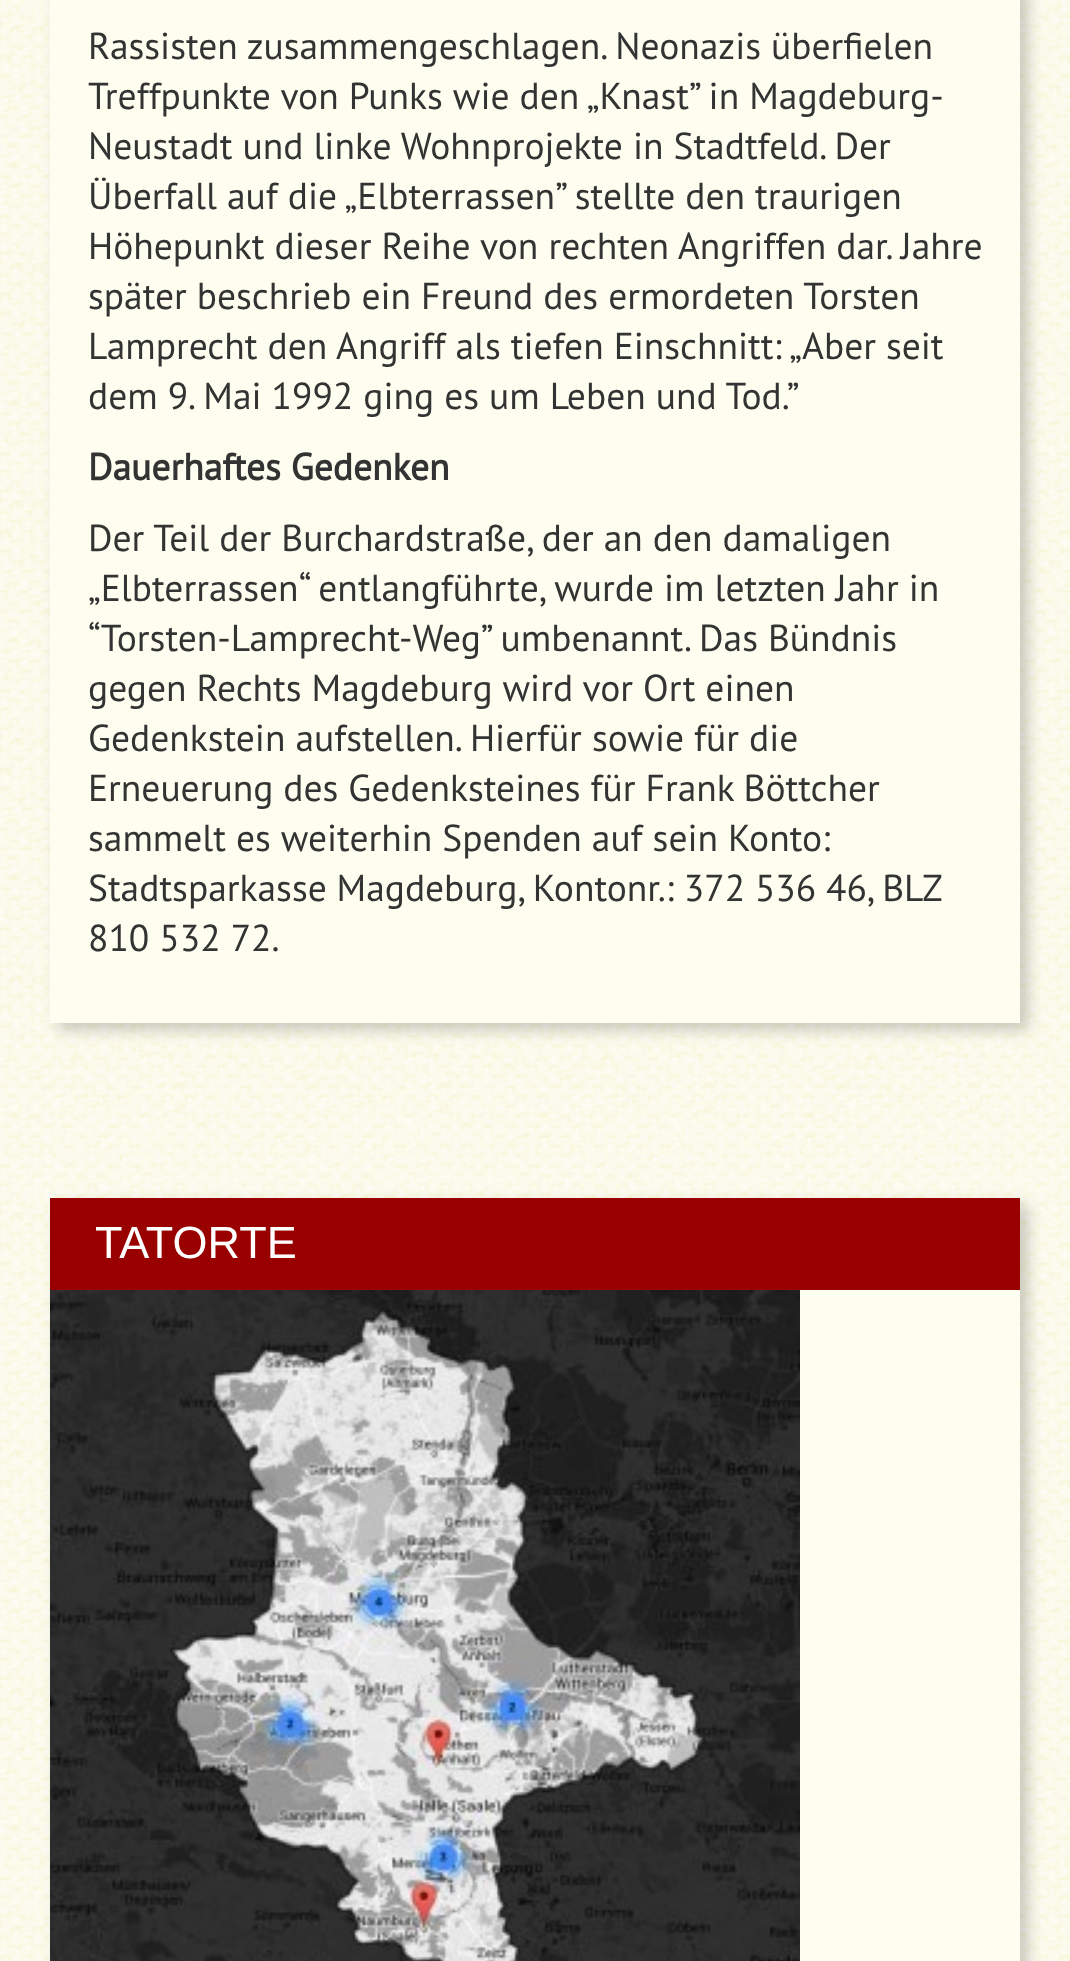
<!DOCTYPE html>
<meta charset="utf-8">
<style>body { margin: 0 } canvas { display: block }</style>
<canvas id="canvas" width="1070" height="1961"></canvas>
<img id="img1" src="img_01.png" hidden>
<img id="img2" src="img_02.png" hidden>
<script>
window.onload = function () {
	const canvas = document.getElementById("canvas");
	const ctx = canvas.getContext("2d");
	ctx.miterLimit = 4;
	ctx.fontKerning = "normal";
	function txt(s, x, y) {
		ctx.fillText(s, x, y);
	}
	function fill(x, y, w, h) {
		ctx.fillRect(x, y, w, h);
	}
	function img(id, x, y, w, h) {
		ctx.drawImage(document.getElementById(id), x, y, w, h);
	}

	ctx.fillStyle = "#FFFFFF";
	fill(0, 0, 1070, 1961);
	img("img1", 0, 0, 1070, 1961);
	ctx.fillStyle = "rgba(0, 0, 0, 0.2)";
	ctx.filter = "blur(7.5px)";
	ctx.beginPath();
	ctx.rect(58, -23, 970, 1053);
	ctx.fill();
	ctx.filter = "none";
	ctx.fillStyle = "#FEFEF0";
	fill(50, 0, 970, 1023);
	ctx.fillStyle = "rgba(0, 0, 0, 0.2)";
	ctx.filter = "blur(7.5px)";
	ctx.beginPath();
	ctx.rect(58, 1205, 970, 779);
	ctx.fill();
	ctx.filter = "none";
	ctx.fillStyle = "#FEFEF0";
	fill(800, 1290, 220, 671);
	ctx.fillStyle = "#990000";
	fill(50, 1198, 970, 92);
	img("img2", 50, 1290, 750, 671);
	ctx.font = "37.5px PT Sans";
	ctx.fillStyle = "#333333";
	txt("Rassisten zusammengeschlagen. Neonazis überfielen", 88, 59);
	txt("Treffpunkte von Punks wie den „Knast” in Magdeburg-", 88, 109);
	txt("Neustadt und linke Wohnprojekte in Stadtfeld. Der", 88, 159);
	txt("Überfall auf die „Elbterrassen” stellte den traurigen", 88, 209);
	txt("Höhepunkt dieser Reihe von rechten Angriffen dar. Jahre", 88, 259);
	txt("später beschrieb ein Freund des ermordeten Torsten", 88, 309);
	txt("Lamprecht den Angriff als tiefen Einschnitt: „Aber seit", 88, 359);
	txt("dem 9. Mai 1992 ging es um Leben und Tod.”", 88, 409);
	ctx.font = "bold 37.5px PT Sans";
	txt("Dauerhaftes Gedenken", 88, 480);
	ctx.font = "37.5px PT Sans";
	txt("Der Teil der Burchardstraße, der an den damaligen", 88, 551);
	txt("„Elbterrassen“ entlangführte, wurde im letzten Jahr in", 88, 601);
	txt("“Torsten-Lamprecht-Weg” umbenannt. Das Bündnis", 88, 651);
	txt("gegen Rechts Magdeburg wird vor Ort einen", 88, 701);
	txt("Gedenkstein aufstellen. Hierfür sowie für die", 88, 751);
	txt("Erneuerung des Gedenksteines für Frank Böttcher", 88, 801);
	txt("sammelt es weiterhin Spenden auf sein Konto:", 88, 851);
	ctx.wordSpacing = "-0.25px";
	txt("Stadtsparkasse Magdeburg, Kontonr.: 372 536 46, BLZ", 88, 901);
	ctx.wordSpacing = "0px";
	txt("810 532 72.", 88, 951);
	ctx.font = "45px Liberation Sans";
	ctx.fillStyle = "#FFFFFF";
	txt("TATORTE", 95, 1258);
};
</script>
